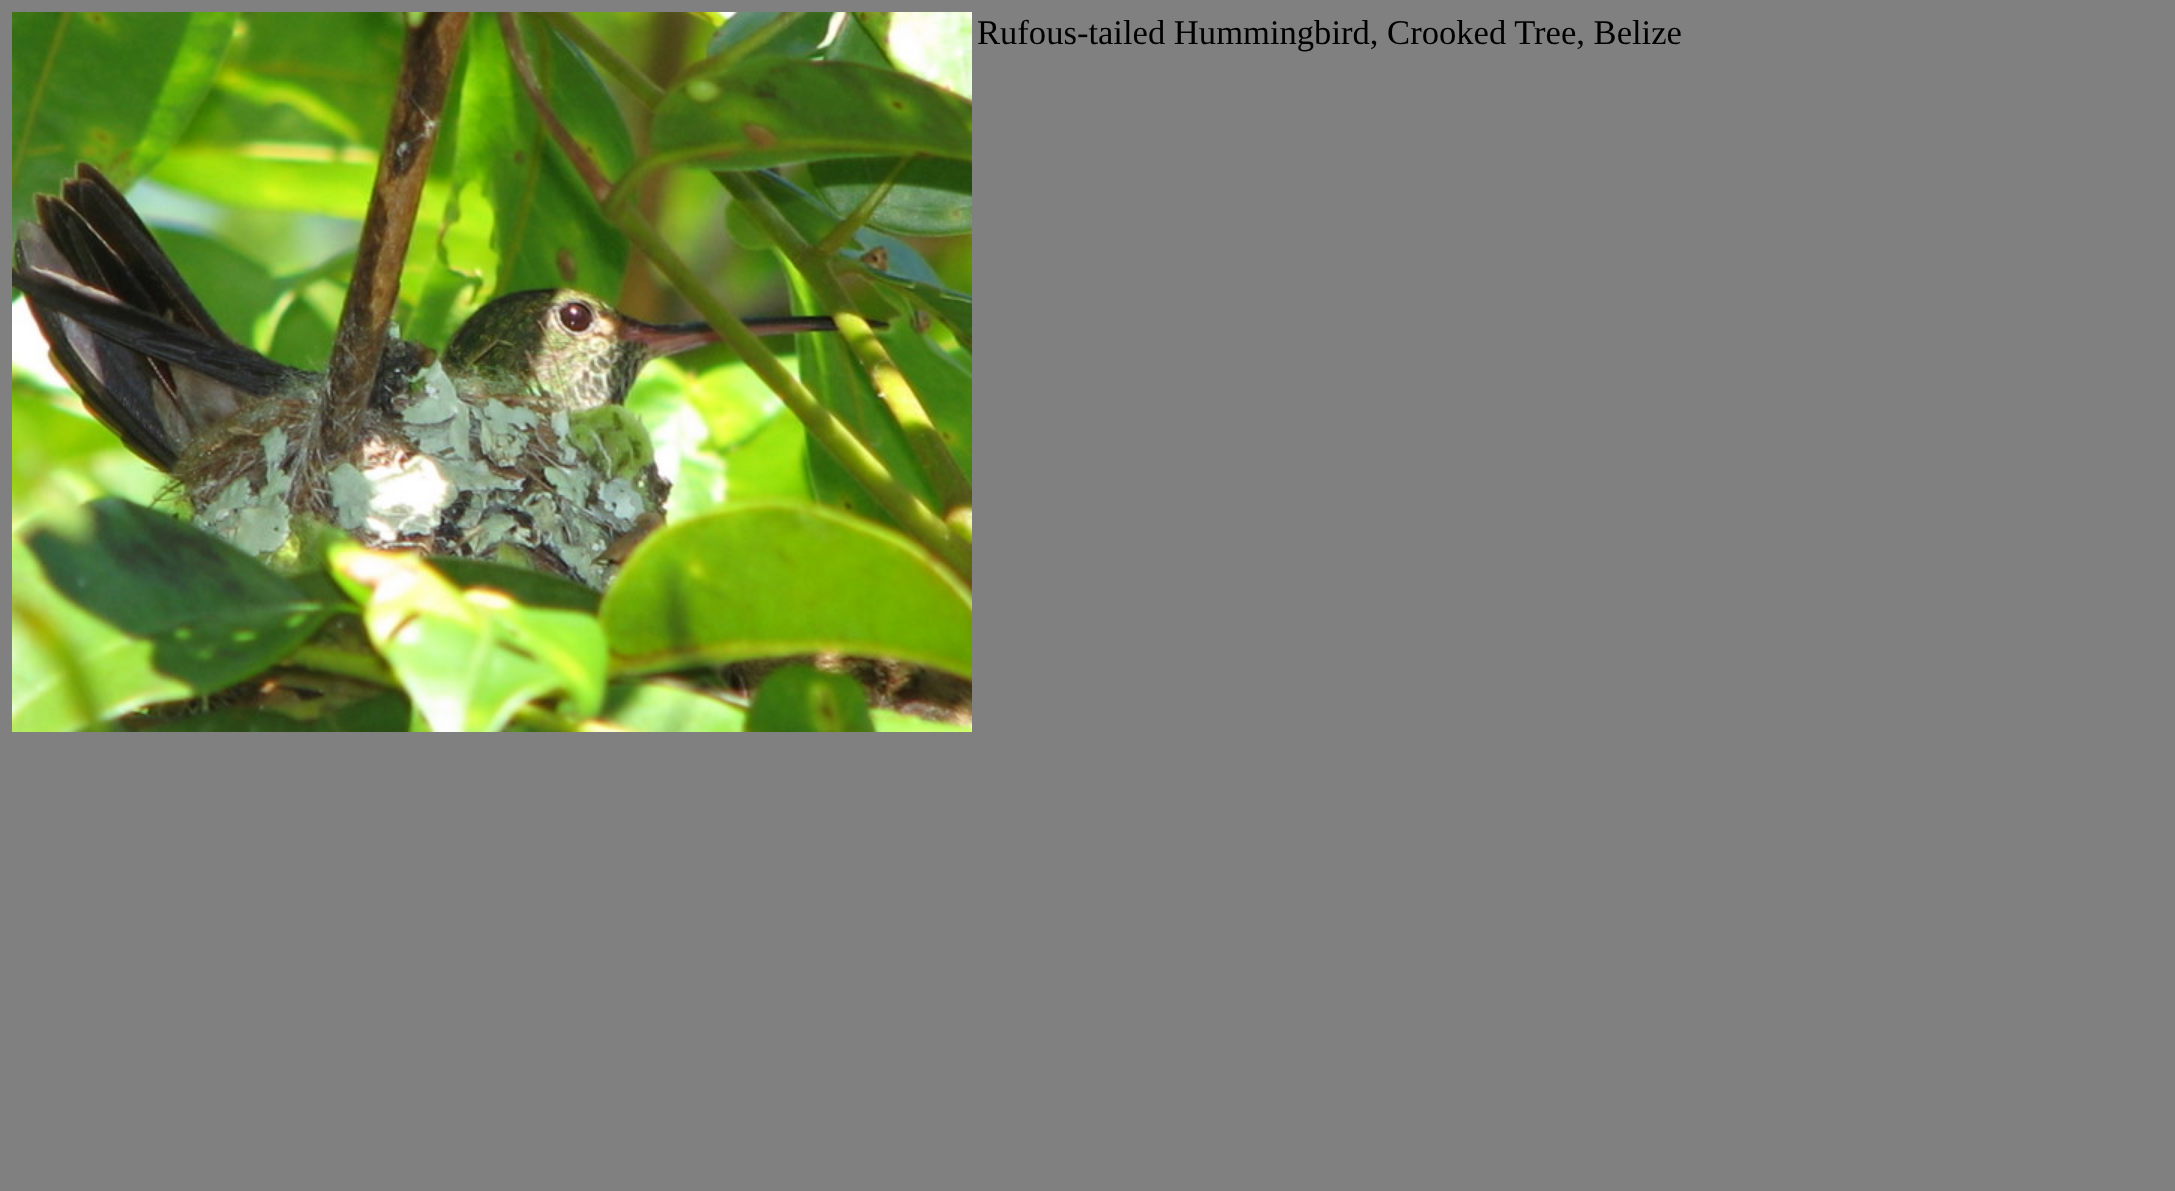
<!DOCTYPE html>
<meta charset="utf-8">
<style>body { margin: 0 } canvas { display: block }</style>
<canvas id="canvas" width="2175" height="1191"></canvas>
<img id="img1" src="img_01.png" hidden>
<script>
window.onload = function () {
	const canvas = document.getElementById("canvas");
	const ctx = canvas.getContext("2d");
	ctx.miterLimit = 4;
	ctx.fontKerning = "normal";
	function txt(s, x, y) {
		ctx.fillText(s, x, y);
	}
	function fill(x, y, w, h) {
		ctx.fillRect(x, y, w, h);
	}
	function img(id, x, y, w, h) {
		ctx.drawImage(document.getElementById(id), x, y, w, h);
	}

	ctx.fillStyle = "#808080";
	fill(0, 0, 2175, 1191);
	img("img1", 12, 12, 960, 720);
	ctx.font = "34.6px Liberation Serif";
	ctx.fillStyle = "#000000";
	txt("Rufous-tailed Hummingbird, Crooked Tree, Belize", 977, 44);
};
</script>
